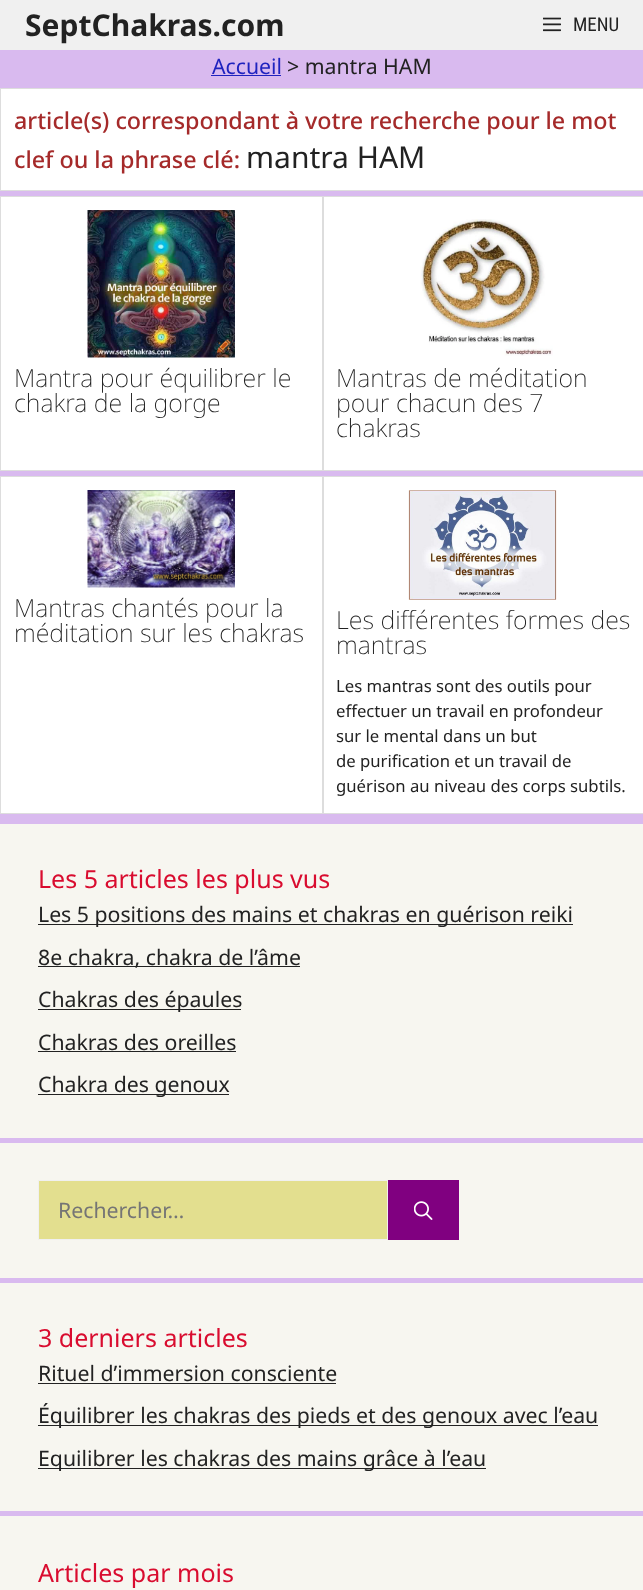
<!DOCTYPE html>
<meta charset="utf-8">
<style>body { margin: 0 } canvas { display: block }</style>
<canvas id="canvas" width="643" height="1590"></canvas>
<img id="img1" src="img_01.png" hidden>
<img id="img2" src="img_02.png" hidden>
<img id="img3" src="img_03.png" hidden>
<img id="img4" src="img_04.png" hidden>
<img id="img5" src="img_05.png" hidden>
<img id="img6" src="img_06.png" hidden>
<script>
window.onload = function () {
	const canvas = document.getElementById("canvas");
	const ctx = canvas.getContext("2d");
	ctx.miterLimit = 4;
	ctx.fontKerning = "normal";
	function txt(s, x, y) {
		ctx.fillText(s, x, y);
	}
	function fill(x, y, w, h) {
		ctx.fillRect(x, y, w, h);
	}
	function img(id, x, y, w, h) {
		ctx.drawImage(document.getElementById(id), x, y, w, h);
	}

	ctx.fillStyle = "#D9BAEF";
	fill(0, 0, 643, 1590);
	ctx.fillStyle = "#F0F0F0";
	fill(0, 0, 643, 50);
	img("img1", 543, 17, 18, 15);
	ctx.fillStyle = "#1F23BF";
	fill(211, 75, 70, 1);
	ctx.fillStyle = "#FFFFFF";
	ctx.beginPath();
	ctx.rect(0.5, 88.5, 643, 102);
	ctx.fill();
	ctx.strokeStyle = "#DDDDDD";
	ctx.stroke();
	ctx.beginPath();
	ctx.rect(0.5, 196.5, 322, 274);
	ctx.fill();
	ctx.stroke();
	img("img2", 87, 210, 148, 148);
	ctx.beginPath();
	ctx.rect(323.5, 196.5, 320, 274);
	ctx.fill();
	ctx.stroke();
	img("img3", 420, 219, 133, 137);
	ctx.beginPath();
	ctx.rect(0.5, 476.5, 322, 337);
	ctx.fill();
	ctx.stroke();
	img("img4", 87, 490, 148, 98);
	ctx.beginPath();
	ctx.rect(323.5, 476.5, 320, 337);
	ctx.fill();
	ctx.stroke();
	img("img5", 408, 490, 149, 110);
	ctx.fillStyle = "#F7F6F0";
	fill(0, 824, 643, 314);
	ctx.fillStyle = "#222222";
	fill(38, 924, 535, 1);
	fill(38, 966, 262, 1);
	fill(38, 1009, 203, 1);
	fill(38, 1051, 198, 1);
	fill(38, 1094, 191, 1);
	ctx.fillStyle = "#F7F6F0";
	fill(0, 1143, 643, 135);
	ctx.fillStyle = "#E3DF8F";
	ctx.beginPath();
	ctx.rect(38.5, 1180.5, 349, 59);
	ctx.fill();
	ctx.strokeStyle = "#F0F0F0";
	ctx.stroke();
	ctx.fillStyle = "#800080";
	fill(388, 1180, 71, 60);
	img("img6", 414, 1201, 19, 19);
	ctx.fillStyle = "#F7F6F0";
	fill(0, 1283, 643, 228);
	ctx.fillStyle = "#222222";
	fill(38, 1383, 298, 1);
	fill(38, 1425, 560, 1);
	fill(38, 1468, 448, 1);
	ctx.fillStyle = "#F7F6F0";
	fill(0, 1516, 643, 74);
	ctx.font = "bold 30px Noto Sans";
	ctx.fillStyle = "#222222";
	txt("SeptChakras.com", 25, 36);
	ctx.font = "19px Roboto Condensed";
	txt("MENU", 573, 31);
	ctx.font = "21.25px Noto Sans";
	ctx.fillStyle = "#1F23BF";
	txt("Accueil", 212, 74);
	ctx.fillStyle = "#222222";
	txt("> mantra HAM", 287, 74);
	ctx.font = "500 23.3px Noto Sans";
	ctx.fillStyle = "#A52A2A";
	txt("article(s) correspondant à votre recherche pour le mot", 14, 129);
	txt("clef ou la phrase clé:", 14, 168);
	ctx.font = "30px Noto Sans";
	ctx.fillStyle = "#222222";
	txt("mantra HAM", 246, 168);
	ctx.font = "200 25px Noto Sans";
	txt("Mantra pour équilibrer le", 14, 387);
	txt("chakra de la gorge", 14, 412);
	txt("Mantras de méditation", 336, 387);
	txt("pour chacun des 7", 336, 412);
	txt("chakras", 336, 437);
	txt("Mantras chantés pour la", 14, 617);
	txt("méditation sur les chakras", 14, 642);
	txt("Les différentes formes des", 336, 629);
	txt("mantras", 336, 654);
	ctx.font = "16.7px Noto Sans";
	txt("Les mantras sont des outils pour", 336, 692);
	txt("effectuer un travail en profondeur", 336, 717);
	txt("sur le mental dans un but", 336, 742);
	txt("de purification et un travail de", 336, 767);
	txt("guérison au niveau des corps subtils.", 336, 792);
	ctx.font = "25px Noto Sans";
	ctx.fillStyle = "#D90C2F";
	txt("Les 5 articles les plus vus", 38, 888);
	ctx.font = "21.25px Noto Sans";
	ctx.fillStyle = "#222222";
	txt("Les 5 positions des mains et chakras en guérison reiki", 38, 922);
	txt("8e chakra, chakra de l’âme", 38, 965);
	txt("Chakras des épaules", 38, 1007);
	txt("Chakras des oreilles", 38, 1050);
	txt("Chakra des genoux", 38, 1092);
	ctx.fillStyle = "#757575";
	txt("Rechercher…", 58, 1218);
	ctx.font = "25px Noto Sans";
	ctx.fillStyle = "#D90C2F";
	txt("3 derniers articles", 38, 1347);
	ctx.font = "21.25px Noto Sans";
	ctx.fillStyle = "#222222";
	txt("Rituel d’immersion consciente", 38, 1381);
	txt("Équilibrer les chakras des pieds et des genoux avec l’eau", 38, 1423);
	txt("Equilibrer les chakras des mains grâce à l’eau", 38, 1466);
	ctx.font = "25px Noto Sans";
	ctx.fillStyle = "#D90C2F";
	txt("Articles par mois", 38, 1582);
};
</script>
